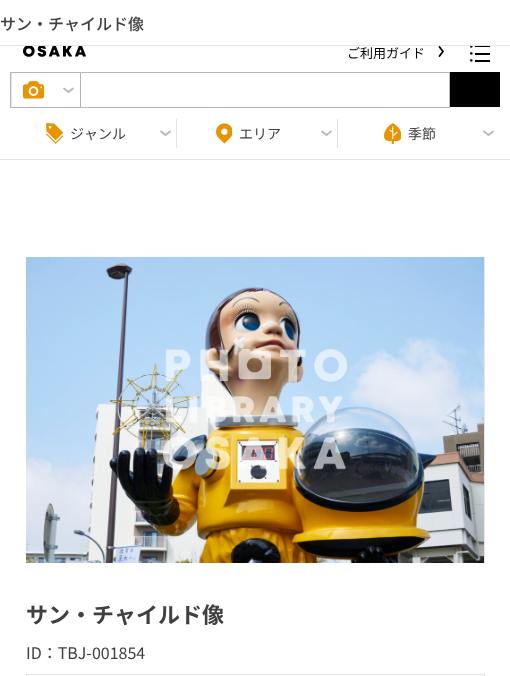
<!DOCTYPE html>
<meta charset="utf-8">
<style>body { margin: 0 } canvas { display: block }</style>
<canvas id="canvas" width="510" height="676"></canvas>
<img id="img1" src="img_01.png" hidden>
<img id="img2" src="img_02.png" hidden>
<img id="img3" src="img_03.png" hidden>
<img id="img4" src="img_04.png" hidden>
<img id="img5" src="img_05.png" hidden>
<img id="img6" src="img_06.png" hidden>
<img id="img7" src="img_07.png" hidden>
<img id="img8" src="img_08.png" hidden>
<script>
window.onload = function () {
	const canvas = document.getElementById("canvas");
	const ctx = canvas.getContext("2d");
	ctx.miterLimit = 4;
	ctx.fontKerning = "none";
	function txt(s, x, y) {
		ctx.fillText(s, x, y);
	}
	function fill(x, y, w, h) {
		ctx.fillRect(x, y, w, h);
	}
	function img(id, x, y, w, h) {
		ctx.drawImage(document.getElementById(id), x, y, w, h);
	}

	ctx.fillStyle = "#FFFFFF";
	fill(0, 0, 510, 676);
	ctx.fillStyle = "#E5E5E5";
	fill(0, 45, 510, 1);
	ctx.fillStyle = "#E6E6E6";
	fill(484, 257, 1, 306);
	img("img1", 26, 257, 458, 306);
	img("img2", 163, 349, 184, 121);
	ctx.strokeStyle = "#E5E5E5";
	ctx.strokeRect(26.5, 674.5, 458, 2);
	ctx.fillStyle = "#E5E5E5";
	fill(0, 159, 510, 1);
	img("img3", 23, 46, 63, 11);
	ctx.beginPath();
	ctx.moveTo(439.5, 56);
	ctx.lineTo(443, 51.5);
	ctx.moveTo(439.5, 47);
	ctx.lineTo(443, 51.5);
	ctx.strokeStyle = "#000000";
	ctx.lineWidth = 1.8;
	ctx.lineCap = "round";
	ctx.stroke();
	img("img4", 470, 46, 20, 16);
	ctx.fillStyle = "#B7B7B7";
	fill(10, 72, 70, 1);
	fill(10, 107, 70, 1);
	fill(10, 72, 1, 36);
	ctx.fillStyle = "#E5E5E5";
	fill(11, 73, 1, 34);
	img("img5", 23, 81, 21, 18);
	ctx.beginPath();
	ctx.moveTo(64, 88.5);
	ctx.lineTo(68.5, 92);
	ctx.moveTo(73, 88.5);
	ctx.lineTo(68.5, 92);
	ctx.strokeStyle = "#B7B7B7";
	ctx.stroke();
	ctx.lineWidth = 1;
	ctx.strokeRect(80.5, 72.5, 369, 35);
	ctx.fillStyle = "#000000";
	fill(450, 72, 50, 35);
	img("img6", 46, 123, 17, 21);
	ctx.beginPath();
	ctx.moveTo(161, 131.5);
	ctx.lineTo(165.5, 135);
	ctx.moveTo(170, 131.5);
	ctx.lineTo(165.5, 135);
	ctx.lineWidth = 1.8;
	ctx.stroke();
	ctx.fillStyle = "#E5E5E5";
	fill(176, 119, 1, 29);
	img("img7", 216, 123, 16, 21);
	ctx.beginPath();
	ctx.moveTo(322, 131.5);
	ctx.lineTo(326.5, 135);
	ctx.moveTo(331, 131.5);
	ctx.lineTo(326.5, 135);
	ctx.stroke();
	fill(337, 119, 1, 29);
	img("img8", 384, 123, 17, 21);
	ctx.beginPath();
	ctx.moveTo(484, 131.5);
	ctx.lineTo(488.5, 135);
	ctx.moveTo(493, 131.5);
	ctx.lineTo(488.5, 135);
	ctx.stroke();
	ctx.font = "500 16px Noto Sans JP";
	ctx.fillStyle = "#404040";
	txt("サン・チャイルド像", 0, 30);
	ctx.font = "bold 22px Noto Sans JP";
	txt("サン・チャイルド像", 26, 623);
	ctx.font = "16px Noto Sans JP";
	txt("ID：TBJ-001854", 26, 659);
	ctx.font = "13px Noto Sans JP";
	ctx.fillStyle = "#000000";
	txt("ご利用ガイド", 347, 58);
	ctx.font = "14px Noto Sans JP";
	ctx.fillStyle = "#404040";
	txt("ジャンル", 70, 139);
	txt("エリア", 239, 139);
	txt("季節", 408, 139);
};
</script>
